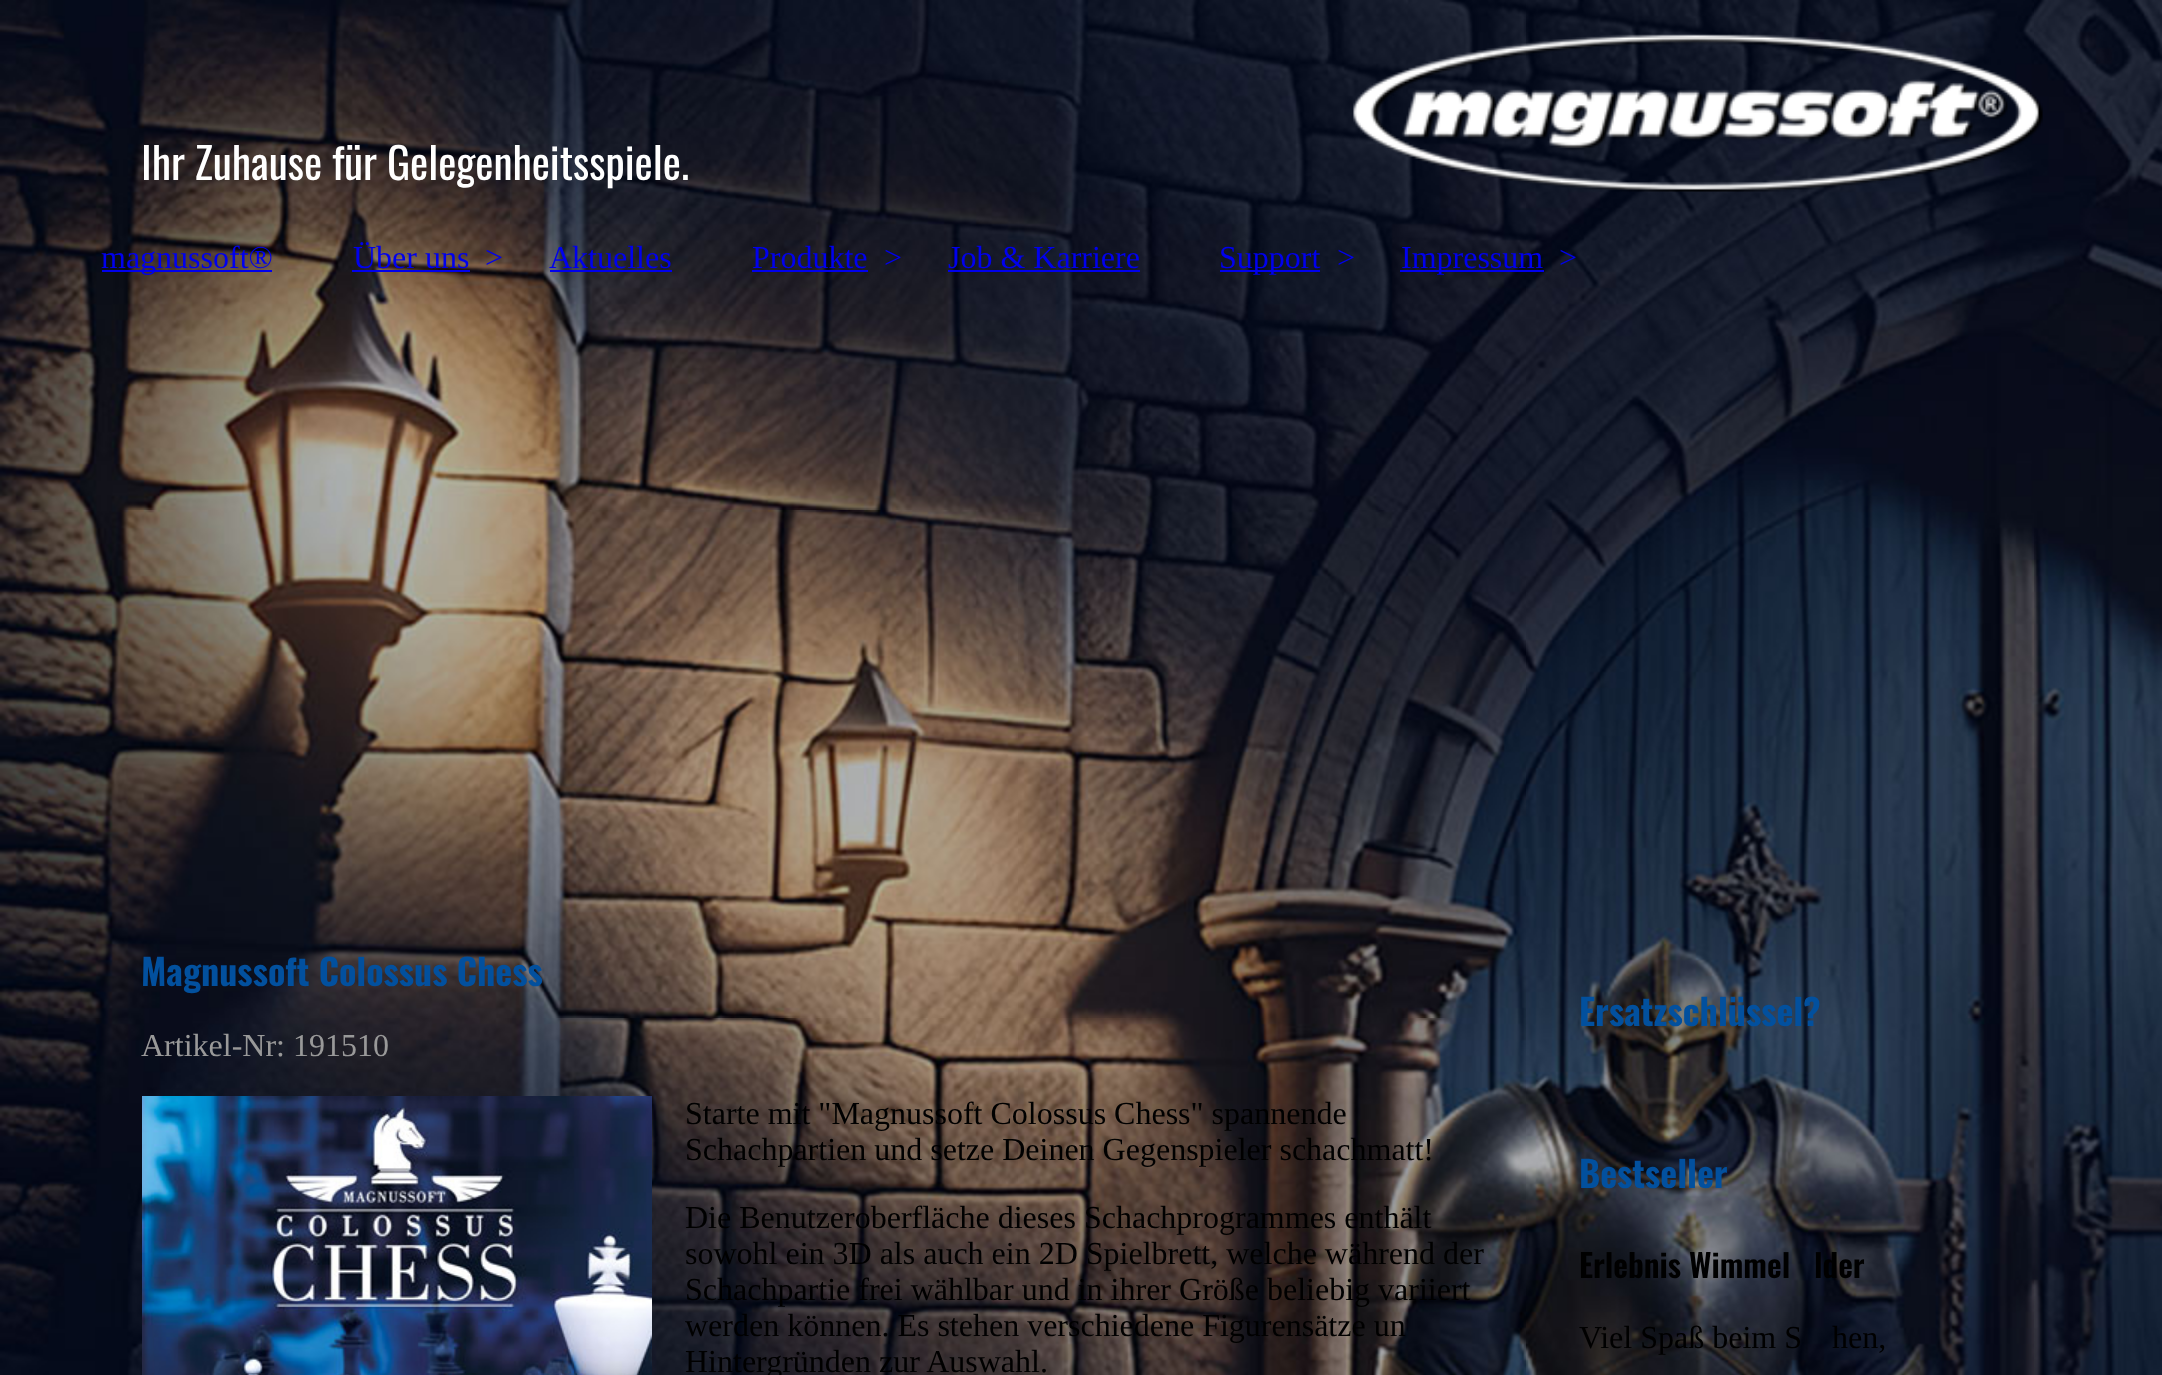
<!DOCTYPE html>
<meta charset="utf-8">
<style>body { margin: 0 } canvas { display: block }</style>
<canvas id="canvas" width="2162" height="1375"></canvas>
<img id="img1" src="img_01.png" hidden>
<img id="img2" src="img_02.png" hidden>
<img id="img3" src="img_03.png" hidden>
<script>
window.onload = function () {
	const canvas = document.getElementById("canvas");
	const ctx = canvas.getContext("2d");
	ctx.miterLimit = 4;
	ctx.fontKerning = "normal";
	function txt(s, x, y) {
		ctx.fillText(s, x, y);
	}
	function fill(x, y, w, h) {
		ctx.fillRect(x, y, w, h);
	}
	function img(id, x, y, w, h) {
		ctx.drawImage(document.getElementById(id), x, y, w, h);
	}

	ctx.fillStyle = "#FFFFFF";
	fill(0, 0, 2162, 1375);
	img("img1", 0, 0, 2162, 1375);
	img("img2", 1353, 34, 690, 158);
	ctx.fillStyle = "#0000EE";
	fill(102, 270, 170, 2);
	fill(352, 270, 118, 2);
	fill(550, 270, 122, 2);
	fill(752, 270, 116, 2);
	fill(948, 270, 192, 2);
	fill(1220, 270, 100, 2);
	fill(1400, 270, 144, 2);
	img("img3", 142, 1096, 510, 279);
	ctx.font = "43.25px Oswald";
	ctx.fillStyle = "#FFFFFF";
	txt("Ihr Zuhause für Gelegenheitsspiele.", 141, 180);
	ctx.font = "32px Liberation Serif";
	ctx.fillStyle = "#0000EE";
	txt("magnussoft®", 101, 268);
	txt("Über uns", 353, 268);
	txt(">", 485, 268);
	txt("Aktuelles", 549, 268);
	txt("Produkte", 752, 268);
	txt(">", 884, 268);
	txt("Job & Karriere", 948, 268);
	txt("Support", 1219, 268);
	txt(">", 1337, 268);
	txt("Impressum", 1401, 268);
	txt(">", 1559, 268);
	ctx.font = "bold 36px Oswald";
	ctx.fillStyle = "#02509E";
	txt("Magnussoft Colossus Chess", 141, 986);
	ctx.font = "32px Liberation Serif";
	ctx.fillStyle = "#999999";
	txt("Artikel-Nr: 191510", 141, 1056);
	ctx.fillStyle = "#000000";
	txt("Starte mit \"Magnussoft Colossus Chess\" spannende", 685, 1124);
	txt("Schachpartien und setze Deinen Gegenspieler schachmatt!", 685, 1160);
	txt("Die Benutzeroberfläche dieses Schachprogrammes enthält", 685, 1228);
	txt("sowohl ein 3D als auch ein 2D Spielbrett, welche während der", 685, 1264);
	txt("Schachpartie frei wählbar und in ihrer Größe beliebig variiert", 685, 1300);
	txt("werden können. Es stehen verschiedene Figurensätze un", 685, 1336);
	txt("Hintergründen zur Auswahl.", 685, 1372);
	ctx.font = "bold 36px Oswald";
	ctx.fillStyle = "#02509E";
	txt("Ersatzschlüssel?", 1579, 1026);
	txt("Bestseller", 1579, 1188);
	ctx.font = "600 32px Oswald";
	ctx.fillStyle = "#000000";
	txt("Erlebnis Wimmel", 1579, 1278);
	txt("lder", 1814, 1278);
	ctx.font = "32px Liberation Serif";
	txt("Viel Spaß beim S", 1579, 1348);
	txt("hen,", 1832, 1348);
};
</script>
